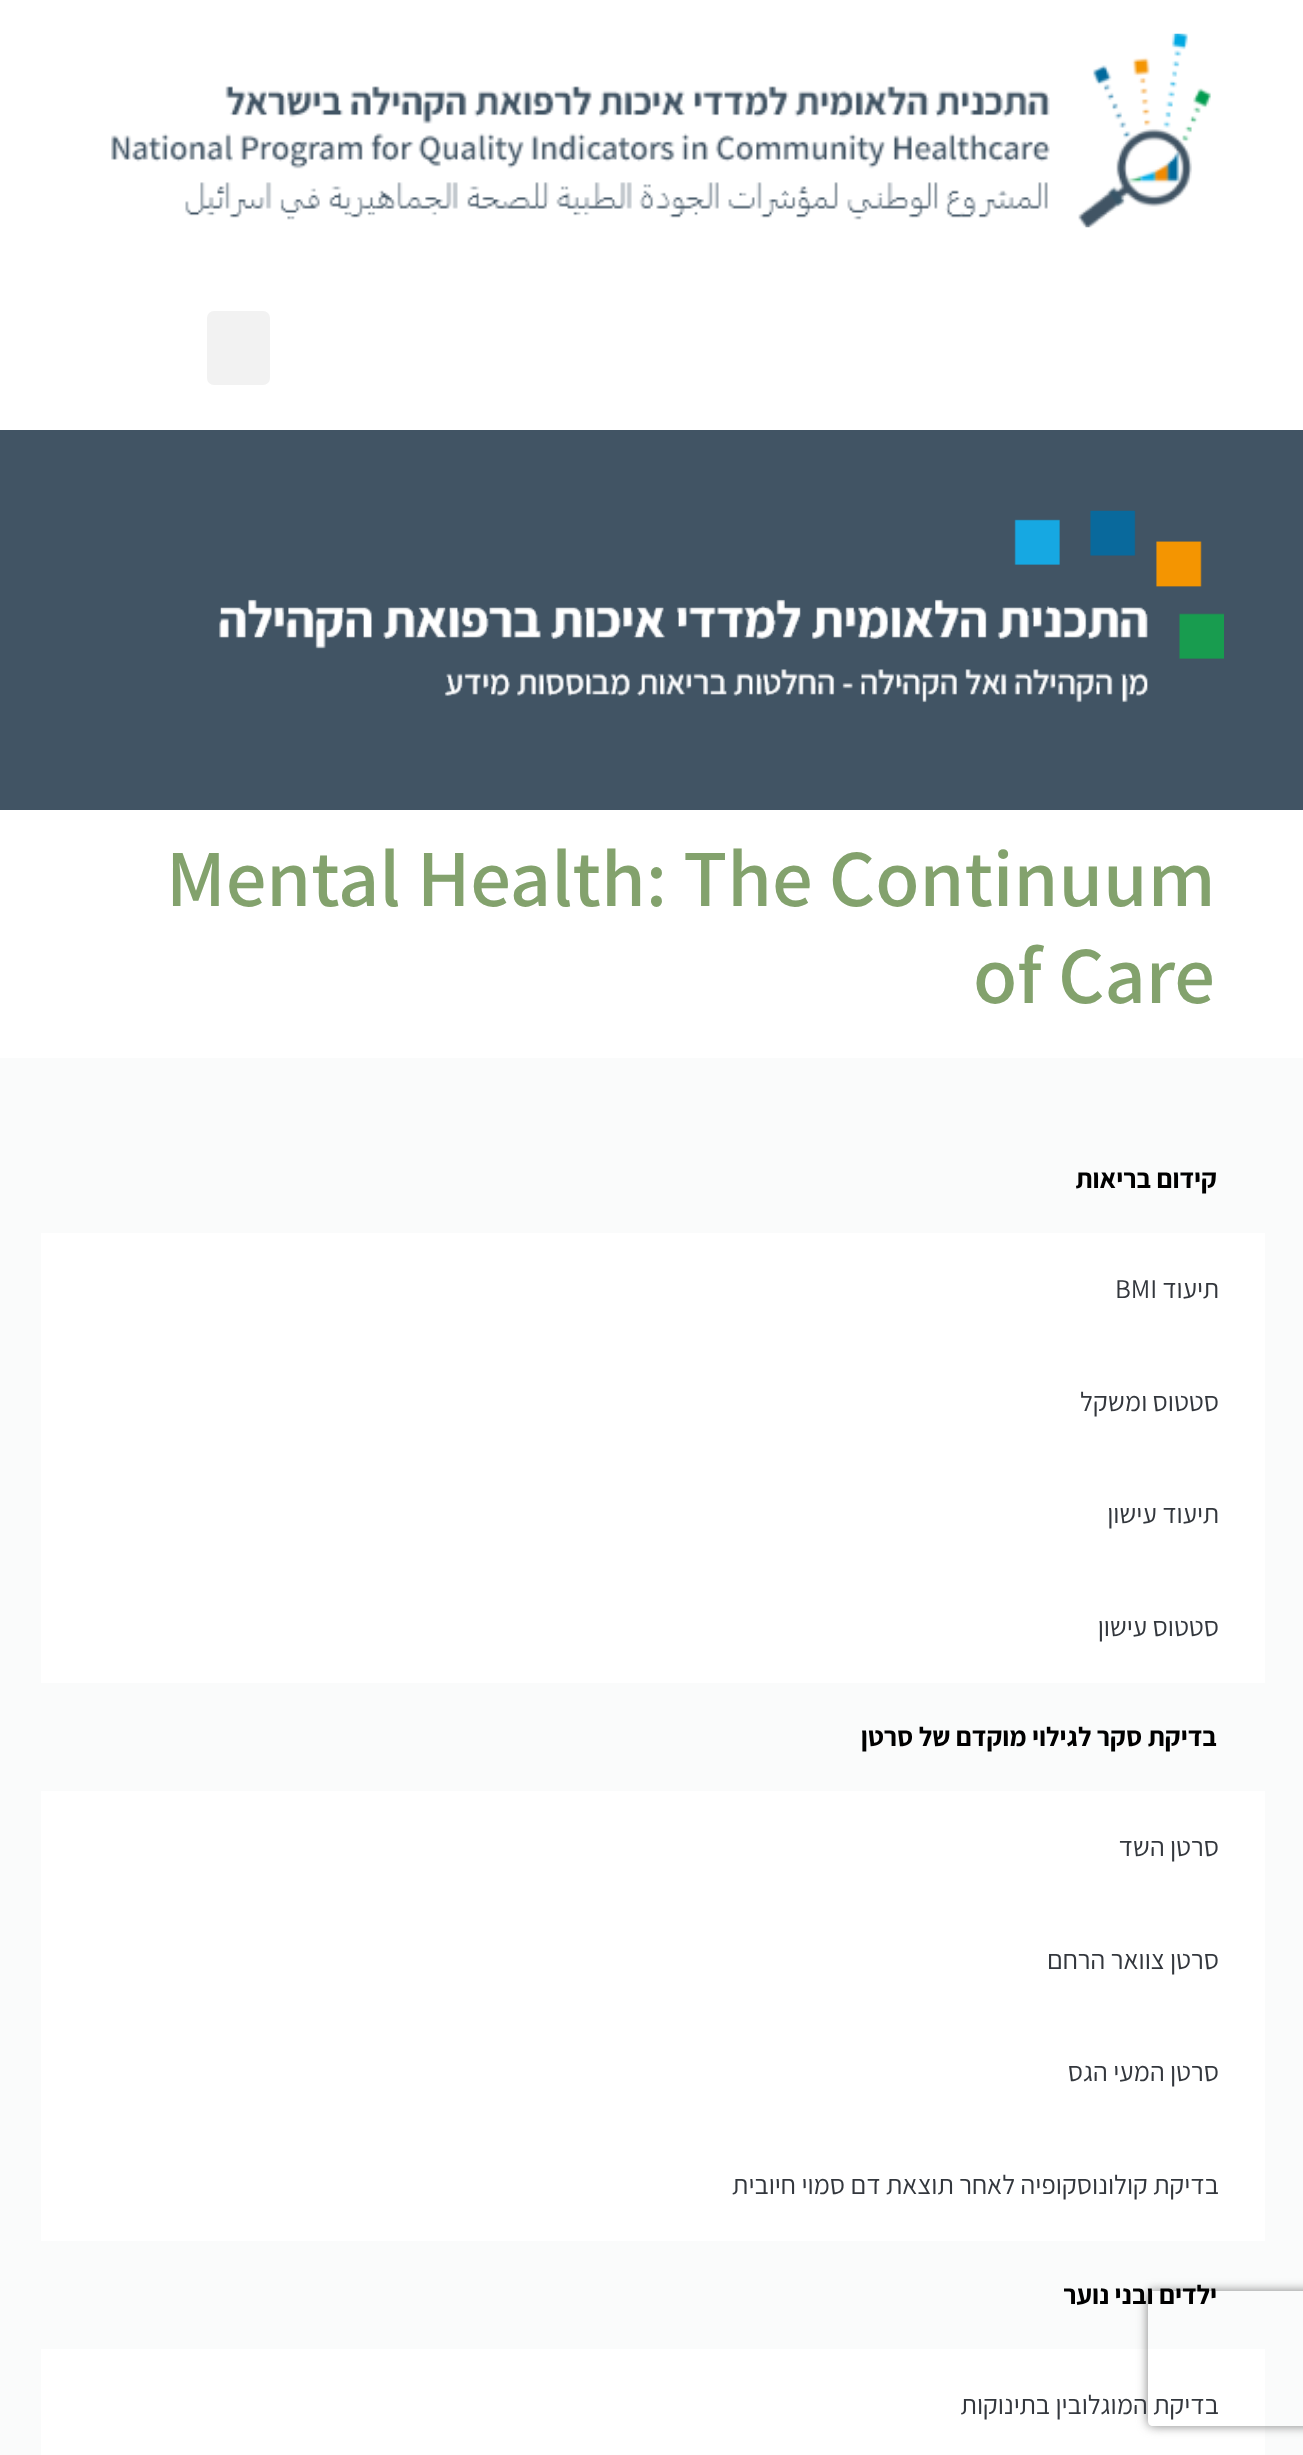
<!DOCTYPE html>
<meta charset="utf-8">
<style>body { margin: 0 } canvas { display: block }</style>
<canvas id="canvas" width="1303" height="2455"></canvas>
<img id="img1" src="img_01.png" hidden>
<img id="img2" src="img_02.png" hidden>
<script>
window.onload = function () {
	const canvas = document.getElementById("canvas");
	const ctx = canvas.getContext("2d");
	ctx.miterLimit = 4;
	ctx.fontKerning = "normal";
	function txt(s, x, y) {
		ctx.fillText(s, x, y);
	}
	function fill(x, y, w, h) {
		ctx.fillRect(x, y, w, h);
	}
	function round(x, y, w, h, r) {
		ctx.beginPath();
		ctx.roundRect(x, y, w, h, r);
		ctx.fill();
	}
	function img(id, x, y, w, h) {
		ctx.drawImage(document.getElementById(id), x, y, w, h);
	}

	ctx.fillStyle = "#FFFFFF";
	fill(0, 0, 1303, 2455);
	img("img1", 111, 33, 1100, 195);
	ctx.fillStyle = "#F2F2F2";
	round(207, 311, 63, 74, 7);
	ctx.fillStyle = "#415464";
	fill(0, 430, 1303, 380);
	img("img2", 219, 510, 1005, 193);
	ctx.fillStyle = "#FAFBFB";
	fill(0, 1058, 1303, 1397);
	ctx.fillStyle = "#FFFFFF";
	fill(41, 1233, 1224, 450);
	fill(41, 1791, 1224, 450);
	fill(41, 2349, 1224, 106);
	ctx.save();
	ctx.beginPath();
	ctx.moveTo(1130, 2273);
	ctx.lineTo(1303, 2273);
	ctx.lineTo(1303, 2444);
	ctx.lineTo(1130, 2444);
	ctx.closePath();
	ctx.moveTo(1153, 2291);
	ctx.lineTo(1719, 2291);
	ctx.bezierCurveTo(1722, 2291, 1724, 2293, 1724, 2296);
	ctx.lineTo(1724, 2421);
	ctx.bezierCurveTo(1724, 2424, 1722, 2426, 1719, 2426);
	ctx.lineTo(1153, 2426);
	ctx.bezierCurveTo(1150, 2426, 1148, 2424, 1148, 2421);
	ctx.lineTo(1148, 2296);
	ctx.bezierCurveTo(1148, 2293, 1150, 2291, 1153, 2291);
	ctx.closePath();
	ctx.clip("evenodd");
	ctx.fillStyle = "#808080";
	ctx.filter = "blur(5.5px)";
	ctx.beginPath();
	ctx.roundRect(1148, 2291, 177, 135, 5);
	ctx.fill();
	ctx.filter = "none";
	ctx.restore();
	ctx.font = "600 81px Assistant";
	ctx.fillStyle = "#83A26D";
	txt("Mental Health: The Continuum", 166, 906);
	txt("of Care", 973, 1003);
	ctx.direction = "rtl";
	ctx.font = "bold 27px Assistant";
	ctx.fillStyle = "#000000";
	txt("קידום בריאות", 1217, 1188);
	ctx.font = "27px Assistant";
	ctx.fillStyle = "#33373D";
	txt("תיעוד", 1219, 1298);
	ctx.direction = "ltr";
	txt("BMI", 1115, 1298);
	ctx.direction = "rtl";
	txt("סטטוס ומשקל", 1219, 1411);
	txt("תיעוד עישון", 1219, 1523);
	txt("סטטוס עישון", 1219, 1636);
	ctx.font = "bold 27px Assistant";
	ctx.fillStyle = "#000000";
	txt("בדיקת סקר לגילוי מוקדם של סרטן", 1217, 1746);
	ctx.font = "27px Assistant";
	ctx.fillStyle = "#33373D";
	txt("סרטן השד", 1219, 1856);
	txt("סרטן צוואר הרחם", 1219, 1969);
	txt("סרטן המעי הגס", 1219, 2081);
	txt("בדיקת קולונוסקופיה לאחר תוצאת דם סמוי חיובית", 1219, 2194);
	ctx.font = "bold 27px Assistant";
	ctx.fillStyle = "#000000";
	txt("ילדים ובני נוער", 1217, 2304);
	ctx.font = "27px Assistant";
	ctx.fillStyle = "#33373D";
	txt("בדיקת המוגלובין בתינוקות", 1219, 2414);
};
</script>
